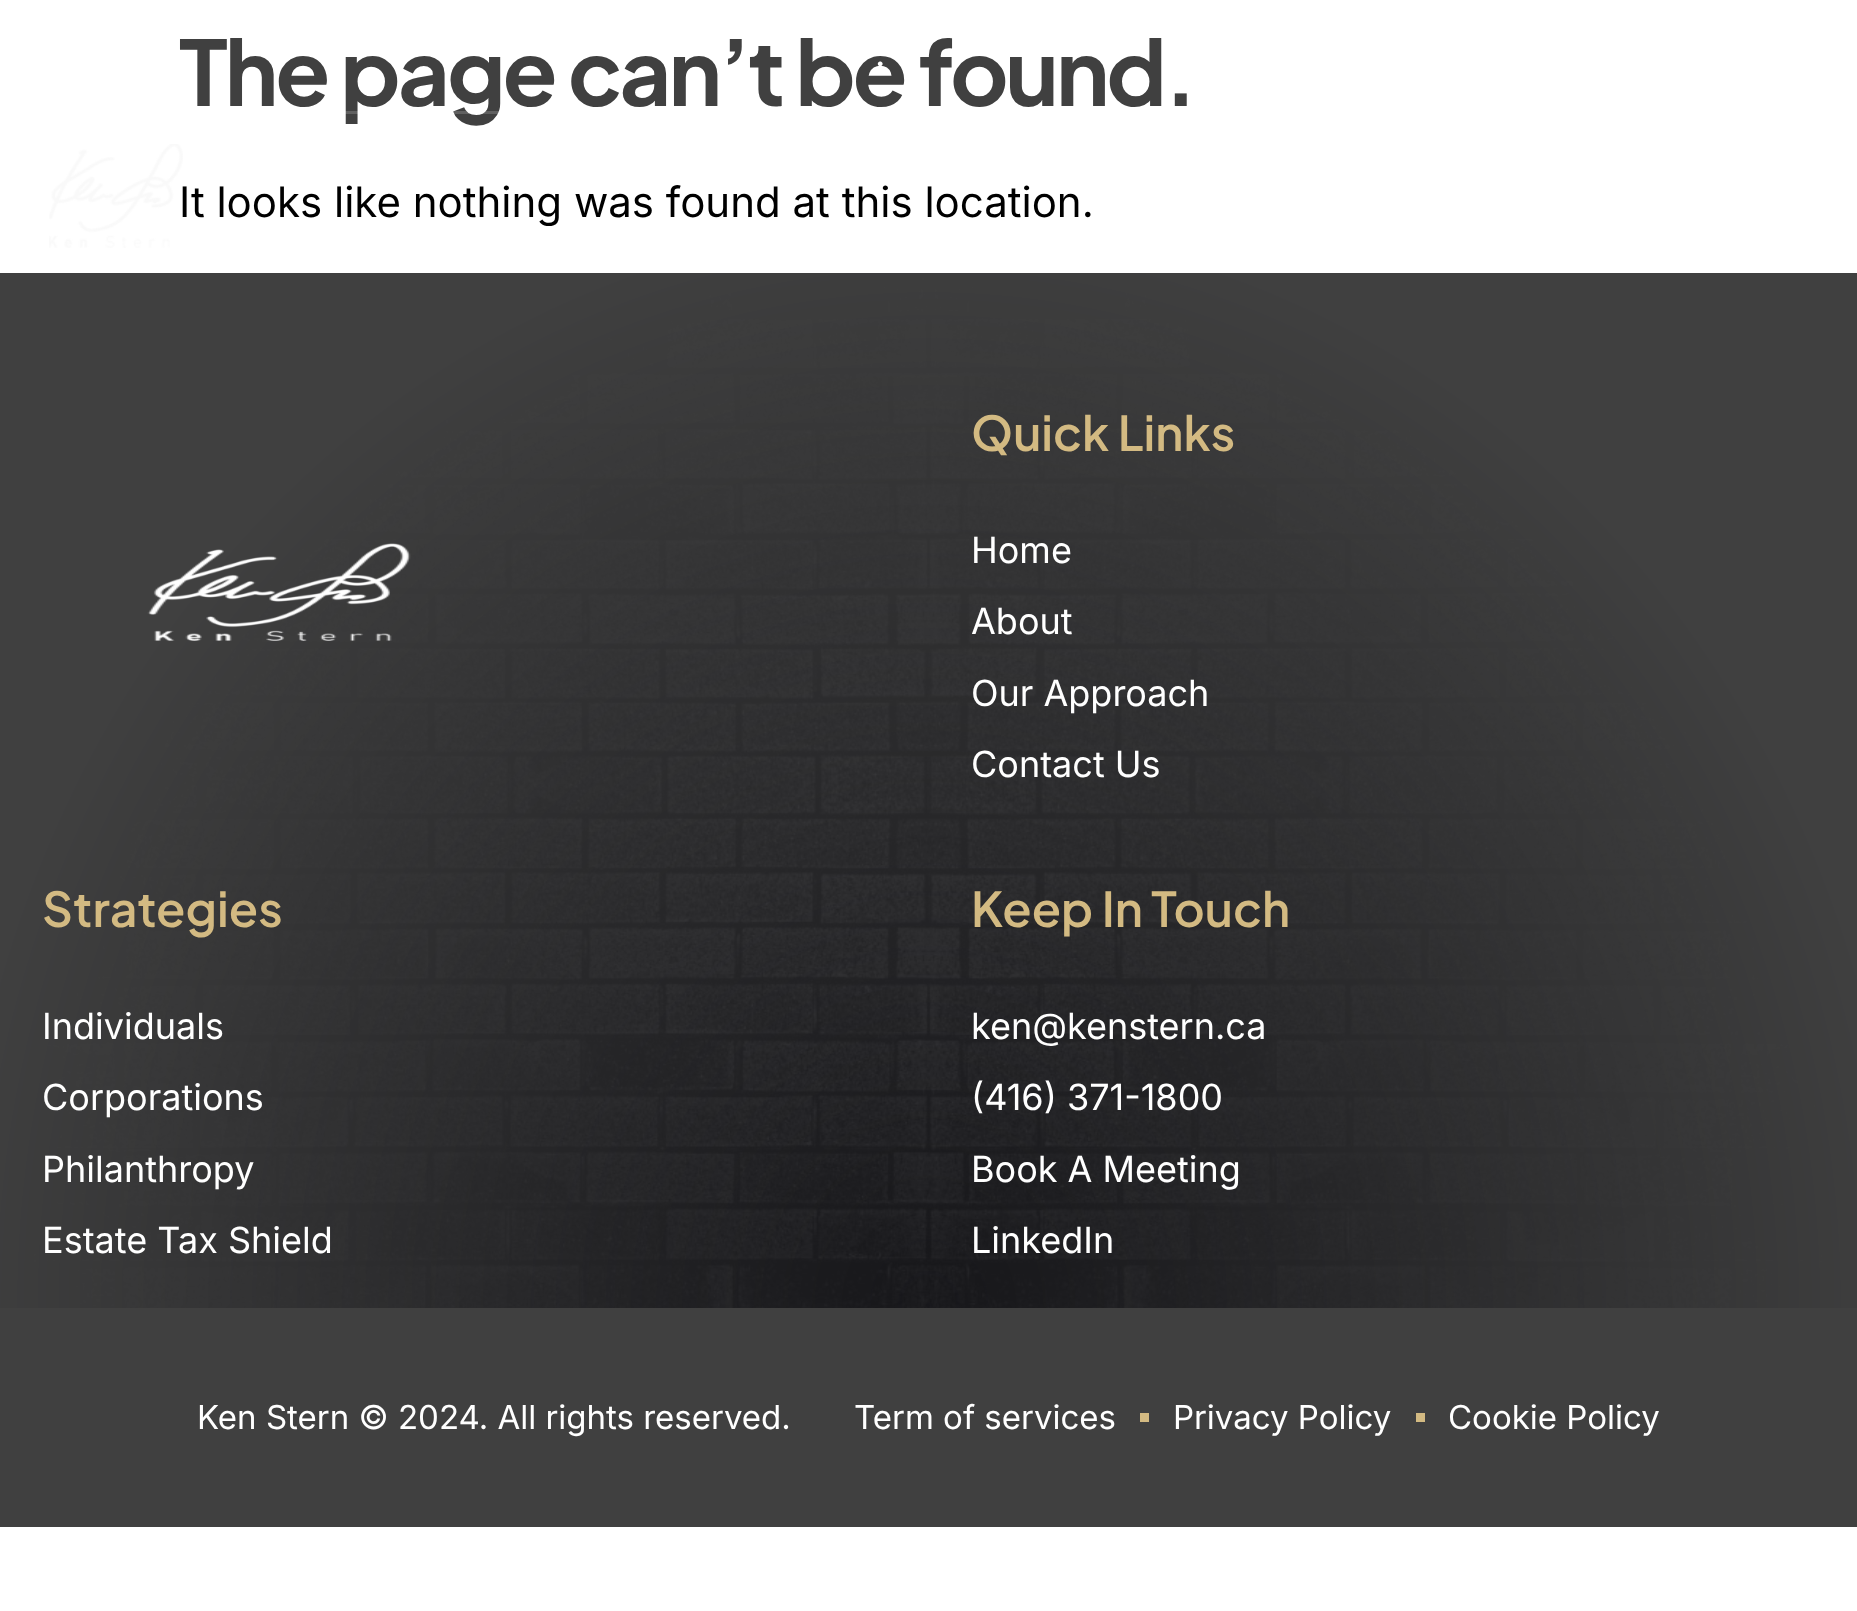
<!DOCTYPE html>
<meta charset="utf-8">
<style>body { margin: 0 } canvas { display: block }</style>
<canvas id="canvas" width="1857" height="1611"></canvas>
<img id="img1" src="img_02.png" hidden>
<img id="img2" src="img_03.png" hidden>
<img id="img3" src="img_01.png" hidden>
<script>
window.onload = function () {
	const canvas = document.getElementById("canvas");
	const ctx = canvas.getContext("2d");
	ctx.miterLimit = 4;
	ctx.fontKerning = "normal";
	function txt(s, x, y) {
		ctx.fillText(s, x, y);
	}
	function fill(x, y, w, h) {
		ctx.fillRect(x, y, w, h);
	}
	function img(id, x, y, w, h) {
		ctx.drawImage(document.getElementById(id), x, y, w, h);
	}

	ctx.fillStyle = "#FFFFFF";
	fill(0, 0, 1857, 1611);
	img("img1", 0, 273, 1857, 1035);
	img("img2", 147, 543, 264, 98);
	ctx.fillStyle = "#404040";
	fill(0, 1308, 1857, 219);
	ctx.fillStyle = "#D3BA82";
	fill(1140, 1413, 9, 9);
	fill(1416, 1413, 9, 9);
	ctx.letterSpacing = "-3px";
	ctx.font = "bold 90px Plus Jakarta Sans";
	ctx.fillStyle = "#404040";
	txt("The page can’t be found.", 179, 106);
	ctx.letterSpacing = "0px";
	ctx.font = "42px Inter";
	ctx.fillStyle = "#000000";
	txt("It looks like nothing was found at this location.", 179, 217);
	ctx.fillStyle = "rgba(255, 255, 255, 0.17)";
	fill(345, 111, 154, 3);
	ctx.font = "36px Inter";
	ctx.fillStyle = "#FFFFFF";
	txt(".", 875, 66);
	img("img3", 49, 144, 134, 104);
	ctx.font = "600 48px Plus Jakarta Sans";
	ctx.fillStyle = "#D3BA82";
	txt("Quick Links", 971, 451);
	ctx.font = "36px Inter";
	ctx.fillStyle = "#FFFFFF";
	txt("Home", 971, 563);
	txt("About", 971, 634);
	txt("Our Approach", 971, 706);
	txt("Contact Us", 971, 777);
	ctx.font = "600 48px Plus Jakarta Sans";
	ctx.fillStyle = "#D3BA82";
	txt("Strategies", 42, 927);
	ctx.font = "36px Inter";
	ctx.fillStyle = "#FFFFFF";
	txt("Individuals", 42, 1039);
	txt("Corporations", 42, 1110);
	txt("Philanthropy", 42, 1182);
	txt("Estate Tax Shield", 42, 1253);
	ctx.font = "600 48px Plus Jakarta Sans";
	ctx.fillStyle = "#D3BA82";
	txt("Keep In Touch", 971, 927);
	ctx.font = "36px Inter";
	ctx.fillStyle = "#FFFFFF";
	txt("ken@kenstern.ca", 971, 1039);
	txt("(416) 371-1800", 971, 1110);
	txt("Book A Meeting", 971, 1182);
	txt("LinkedIn", 971, 1253);
	ctx.font = "33px Inter";
	txt("Ken Stern © 2024. All rights reserved.", 197, 1429);
	txt("Term of services", 854, 1429);
	txt("Privacy Policy", 1173, 1429);
	txt("Cookie Policy", 1448, 1429);
};
</script>
